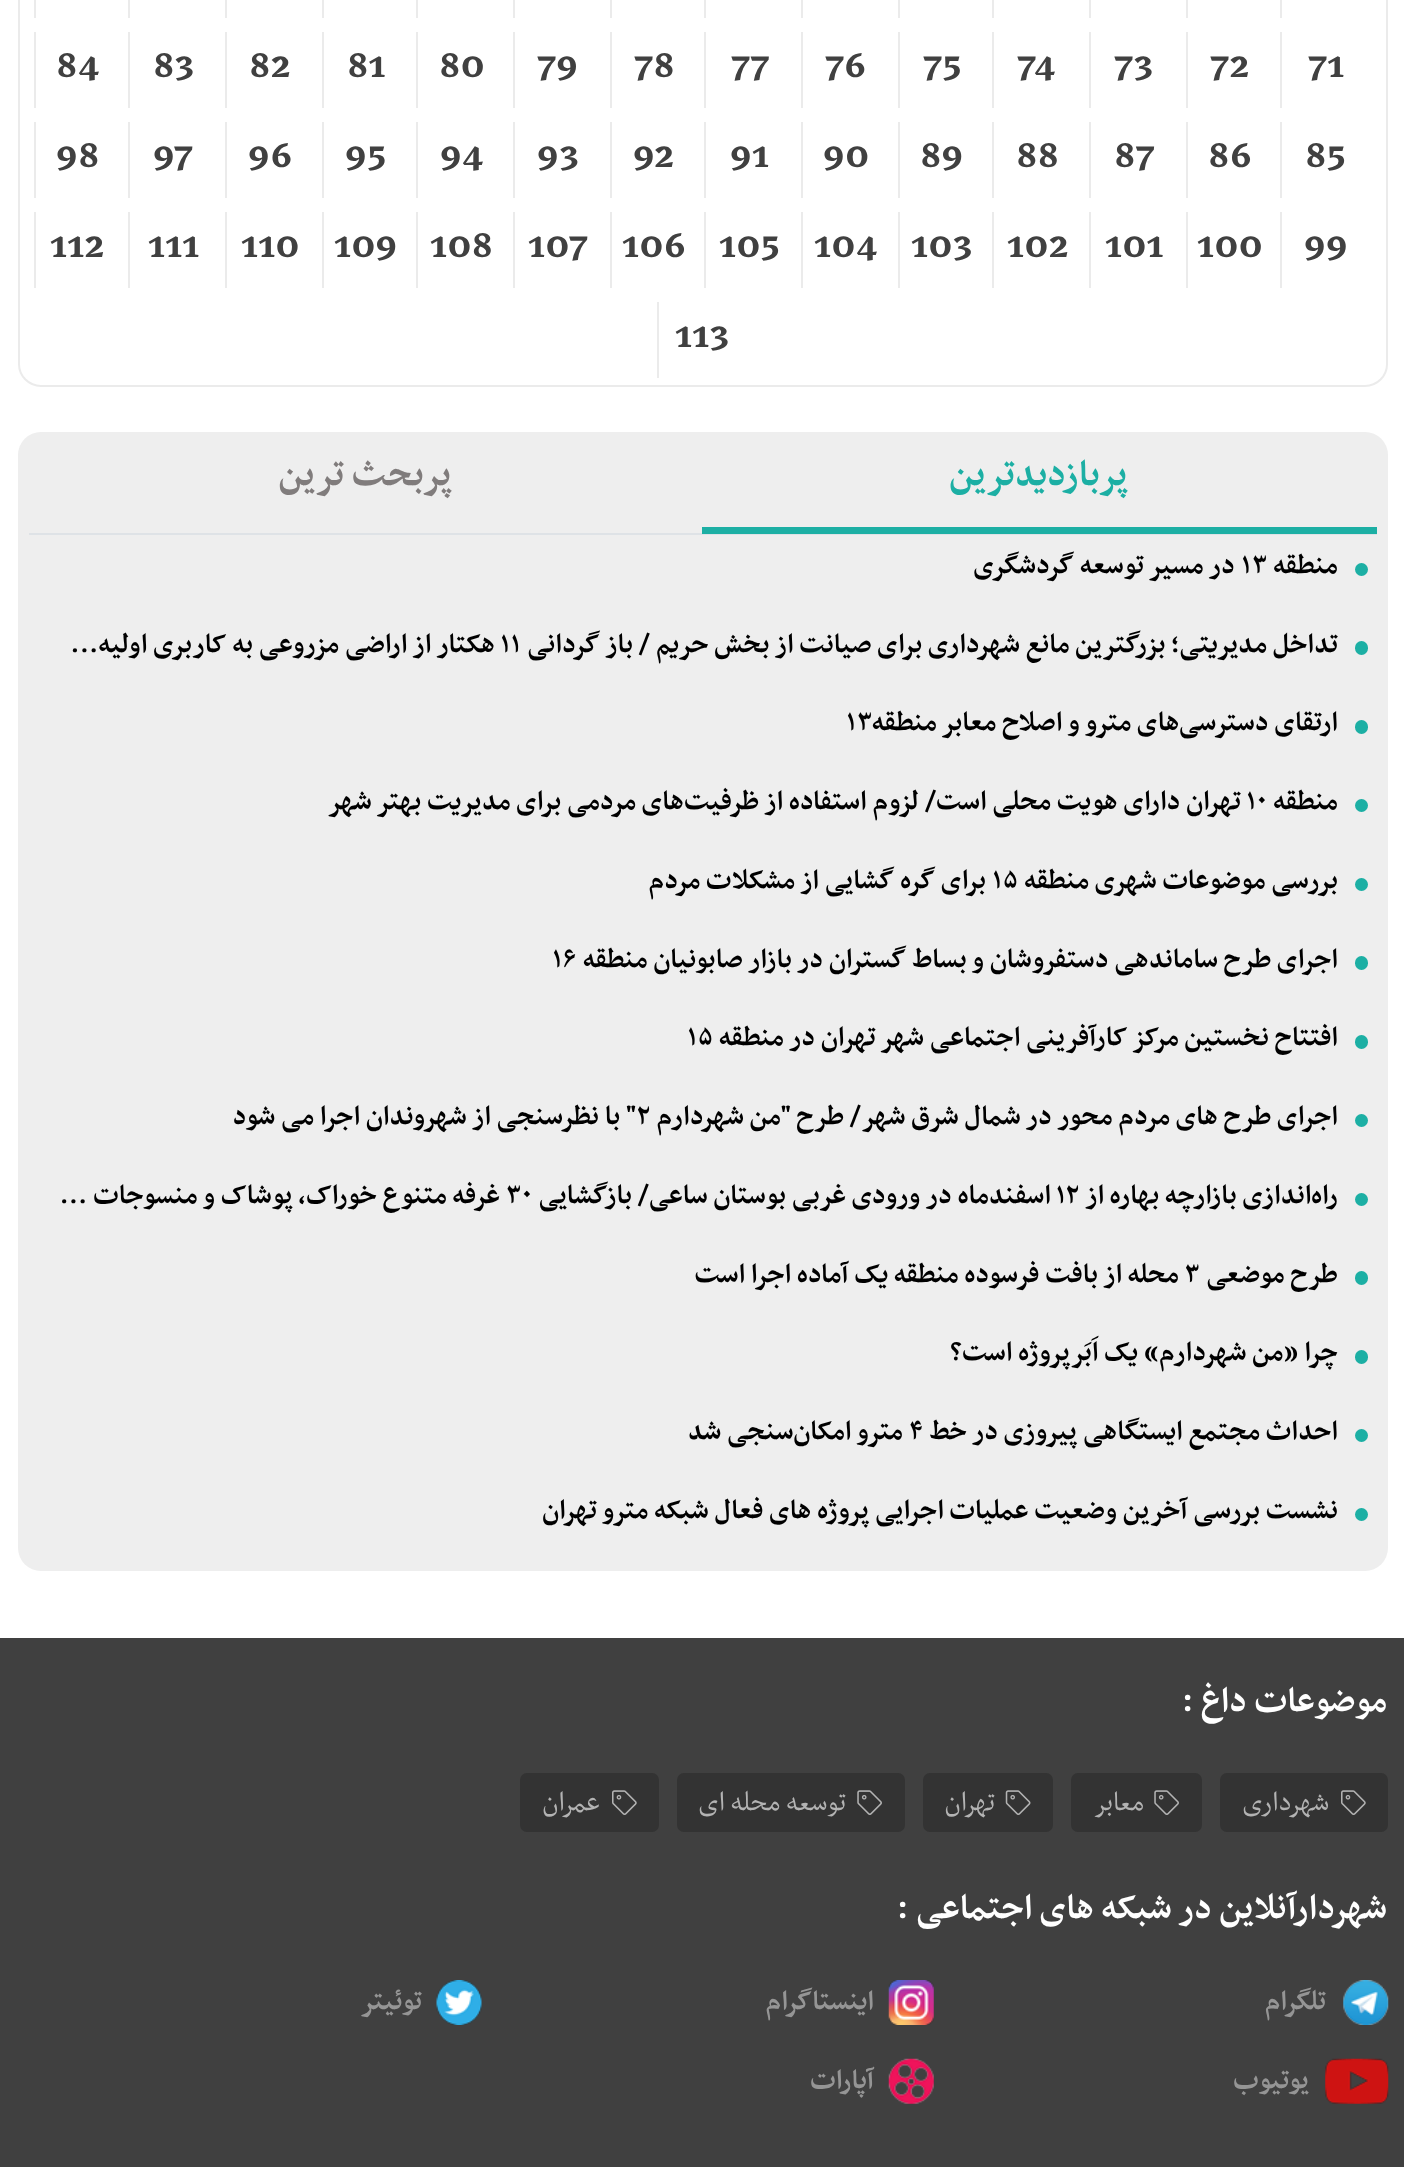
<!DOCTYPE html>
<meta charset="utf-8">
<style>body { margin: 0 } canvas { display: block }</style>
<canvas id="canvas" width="1404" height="2167"></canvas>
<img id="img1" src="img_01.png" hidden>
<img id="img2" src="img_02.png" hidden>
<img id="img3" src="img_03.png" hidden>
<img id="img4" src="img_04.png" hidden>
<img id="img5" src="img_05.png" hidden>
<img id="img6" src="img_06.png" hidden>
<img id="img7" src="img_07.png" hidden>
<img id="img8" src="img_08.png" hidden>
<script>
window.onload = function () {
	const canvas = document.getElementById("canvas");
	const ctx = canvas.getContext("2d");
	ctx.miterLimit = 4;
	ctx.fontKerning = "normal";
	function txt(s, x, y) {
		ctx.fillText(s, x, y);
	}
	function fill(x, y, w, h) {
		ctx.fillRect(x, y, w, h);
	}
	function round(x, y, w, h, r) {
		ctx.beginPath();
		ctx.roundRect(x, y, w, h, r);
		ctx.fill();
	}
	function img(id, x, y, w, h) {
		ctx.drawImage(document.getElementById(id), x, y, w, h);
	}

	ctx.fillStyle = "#FFFFFF";
	fill(0, 0, 1404, 2167);
	ctx.beginPath();
	ctx.roundRect(19, -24, 1368, 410, 22);
	ctx.strokeStyle = "#EBEBEB";
	ctx.lineWidth = 2;
	ctx.stroke();
	ctx.fillStyle = "#EBEBEB";
	fill(1280, 0, 2, 18);
	fill(1186, 0, 2, 18);
	fill(1089, 0, 2, 18);
	fill(992, 0, 2, 18);
	fill(898, 0, 2, 18);
	fill(801, 0, 2, 18);
	fill(704, 0, 2, 18);
	fill(610, 0, 2, 18);
	fill(513, 0, 2, 18);
	fill(416, 0, 2, 18);
	fill(322, 0, 2, 18);
	fill(225, 0, 2, 18);
	fill(128, 0, 2, 18);
	fill(34, 0, 2, 18);
	fill(1280, 32, 2, 76);
	fill(1186, 32, 2, 76);
	fill(1089, 32, 2, 76);
	fill(992, 32, 2, 76);
	fill(898, 32, 2, 76);
	fill(801, 32, 2, 76);
	fill(704, 32, 2, 76);
	fill(610, 32, 2, 76);
	fill(513, 32, 2, 76);
	fill(416, 32, 2, 76);
	fill(322, 32, 2, 76);
	fill(225, 32, 2, 76);
	fill(128, 32, 2, 76);
	fill(34, 32, 2, 76);
	fill(1280, 122, 2, 76);
	fill(1186, 122, 2, 76);
	fill(1089, 122, 2, 76);
	fill(992, 122, 2, 76);
	fill(898, 122, 2, 76);
	fill(801, 122, 2, 76);
	fill(704, 122, 2, 76);
	fill(610, 122, 2, 76);
	fill(513, 122, 2, 76);
	fill(416, 122, 2, 76);
	fill(322, 122, 2, 76);
	fill(225, 122, 2, 76);
	fill(128, 122, 2, 76);
	fill(34, 122, 2, 76);
	fill(1280, 212, 2, 76);
	fill(1186, 212, 2, 76);
	fill(1089, 212, 2, 76);
	fill(992, 212, 2, 76);
	fill(898, 212, 2, 76);
	fill(801, 212, 2, 76);
	fill(704, 212, 2, 76);
	fill(610, 212, 2, 76);
	fill(513, 212, 2, 76);
	fill(416, 212, 2, 76);
	fill(322, 212, 2, 76);
	fill(225, 212, 2, 76);
	fill(128, 212, 2, 76);
	fill(34, 212, 2, 76);
	fill(657, 302, 2, 76);
	ctx.fillStyle = "#EEEEEE";
	round(18, 432, 1370, 1139, 23);
	ctx.fillStyle = "#DEE2E6";
	fill(29, 533, 1348, 2);
	ctx.fillStyle = "#1CAFA4";
	fill(702, 527, 675, 7);
	ctx.beginPath();
	ctx.arc(1361.5, 569.5, 6.5, 0, Math.PI * 2);
	ctx.fill();
	round(1355, 641, 13, 14, 6.5);
	round(1355, 720, 13, 14, 6.5);
	ctx.beginPath();
	ctx.arc(1361.5, 805.5, 6.5, 0, Math.PI * 2);
	ctx.fill();
	ctx.beginPath();
	ctx.arc(1361.5, 884.5, 6.5, 0, Math.PI * 2);
	ctx.fill();
	round(1355, 956, 13, 14, 6.5);
	round(1355, 1035, 13, 14, 6.5);
	ctx.beginPath();
	ctx.arc(1361.5, 1120.5, 6.5, 0, Math.PI * 2);
	ctx.fill();
	ctx.beginPath();
	ctx.arc(1361.5, 1199.5, 6.5, 0, Math.PI * 2);
	ctx.fill();
	round(1355, 1271, 13, 14, 6.5);
	round(1355, 1350, 13, 14, 6.5);
	ctx.beginPath();
	ctx.arc(1361.5, 1435.5, 6.5, 0, Math.PI * 2);
	ctx.fill();
	ctx.beginPath();
	ctx.arc(1361.5, 1514.5, 6.5, 0, Math.PI * 2);
	ctx.fill();
	ctx.fillStyle = "#404040";
	fill(0, 1638, 1404, 529);
	ctx.fillStyle = "#333333";
	round(1220, 1773, 168, 59, 7);
	img("img1", 1341, 1790, 25, 25);
	round(1071, 1773, 131, 59, 7);
	img("img2", 1154, 1790, 25, 25);
	round(923, 1773, 130, 59, 7);
	img("img3", 1005, 1790, 26, 25);
	round(677, 1773, 228, 59, 7);
	img("img2", 857, 1790, 25, 25);
	round(520, 1773, 139, 59, 7);
	img("img1", 612, 1790, 25, 25);
	img("img4", 1343, 1980, 46, 45);
	img("img5", 888, 1980, 46, 45);
	img("img6", 436, 1980, 46, 45);
	img("img7", 1325, 2058, 64, 46);
	img("img8", 888, 2058, 46, 46);
	ctx.font = "bold 45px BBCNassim";
	ctx.fillStyle = "#404040";
	txt("71", 1308, 77);
	txt("72", 1210, 77);
	txt("73", 1114, 77);
	txt("74", 1017, 77);
	txt("75", 923, 77);
	txt("76", 825, 77);
	txt("77", 731, 77);
	txt("78", 634, 77);
	txt("79", 537, 77);
	txt("80", 439, 77);
	txt("81", 347, 77);
	txt("82", 249, 77);
	txt("83", 153, 77);
	txt("84", 56, 77);
	txt("85", 1305, 167);
	txt("86", 1208, 167);
	txt("87", 1114, 167);
	txt("88", 1016, 167);
	txt("89", 920, 167);
	txt("90", 823, 167);
	txt("91", 730, 167);
	txt("92", 633, 167);
	txt("93", 537, 167);
	txt("94", 440, 167);
	txt("95", 345, 167);
	txt("96", 248, 167);
	txt("97", 153, 167);
	txt("98", 56, 167);
	txt("99", 1304, 257);
	txt("100", 1197, 257);
	txt("101", 1105, 257);
	txt("102", 1007, 257);
	txt("103", 911, 257);
	txt("104", 814, 257);
	txt("105", 719, 257);
	txt("106", 622, 257);
	txt("107", 528, 257);
	txt("108", 430, 257);
	txt("109", 334, 257);
	txt("110", 241, 257);
	txt("111", 148, 257);
	txt("112", 50, 257);
	txt("113", 675, 347);
	ctx.direction = "rtl";
	ctx.font = "bold 42.75px BBCNassim";
	ctx.fillStyle = "#1CAFA4";
	txt("پربازدیدترین", 1128, 485);
	ctx.fillStyle = "#807C7C";
	txt("پربحث ترین", 452, 485);
	ctx.font = "bold 31.5px BBCNassim";
	ctx.fillStyle = "#000000";
	txt("منطقه", 1338, 573);
	ctx.direction = "ltr";
	txt("۱۳", 1241, 573);
	ctx.direction = "rtl";
	txt("در مسیر توسعه گردشگری", 1235, 573);
	txt("تداخل مدیریتی؛ بزرگترین مانع شهرداری برای صیانت از بخش حریم / باز گردانی", 1338, 652);
	ctx.direction = "ltr";
	txt("۱۱", 500, 652);
	ctx.direction = "rtl";
	txt("هکتار از اراضی مزروعی به کاربری اولیه...", 495, 652);
	txt("ارتقای دسترسی‌های مترو و اصلاح معابر منطقه", 1338, 730);
	ctx.direction = "ltr";
	txt("۱۳", 846, 730);
	ctx.direction = "rtl";
	txt("منطقه", 1338, 809);
	ctx.direction = "ltr";
	txt("۱۰", 1246, 809);
	ctx.direction = "rtl";
	txt("تهران دارای هویت محلی است/ لزوم استفاده از ظرفیت‌های مردمی برای مدیریت بهتر شهر", 1241, 809);
	txt("بررسی موضوعات شهری منطقه", 1338, 888);
	ctx.direction = "ltr";
	txt("۱۵", 992, 888);
	ctx.direction = "rtl";
	txt("برای گره گشایی از مشکلات مردم", 986, 888);
	txt("اجرای طرح ساماندهی دستفروشان و بساط گستران در بازار صابونیان منطقه", 1338, 967);
	ctx.direction = "ltr";
	txt("۱۶", 552, 967);
	ctx.direction = "rtl";
	txt("افتتاح نخستين مرکز کارآفرينی اجتماعی شهر تهران در منطقه", 1338, 1045);
	ctx.direction = "ltr";
	txt("۱۵", 687, 1045);
	ctx.direction = "rtl";
	txt("اجرای طرح های مردم محور در شمال شرق شهر/ طرح \"من شهردارم", 1338, 1124);
	ctx.direction = "ltr";
	txt("۲", 636, 1124);
	ctx.direction = "rtl";
	txt("\" با نظرسنجی از شهروندان اجرا می شود", 636, 1124);
	txt("راه‌اندازی بازارچه بهاره از", 1338, 1203);
	ctx.direction = "ltr";
	txt("١٢", 1056, 1203);
	ctx.direction = "rtl";
	txt("اسفندماه در ورودی غربی بوستان ساعی/ بازگشایی", 1051, 1203);
	ctx.direction = "ltr";
	txt("٣٠", 506, 1203);
	ctx.direction = "rtl";
	txt("غرفه متنوع خوراک، پوشاک و منسوجات ...", 500, 1203);
	txt("طرح موضعی", 1338, 1282);
	ctx.direction = "ltr";
	txt("۳", 1184, 1282);
	ctx.direction = "rtl";
	txt("محله از بافت فرسوده منطقه یک آماده اجرا است", 1179, 1282);
	txt("چرا «من شهردارم» یک اَبَرپروژه است؟", 1338, 1360);
	txt("احداث مجتمع ایستگاهی پیروزی در خط", 1338, 1439);
	ctx.direction = "ltr";
	txt("۴", 909, 1439);
	ctx.direction = "rtl";
	txt("مترو امکان‌سنجی شد", 903, 1439);
	txt("نشست بررسی آخرین وضعیت عملیات اجرایی پروژه های فعال شبکه مترو تهران", 1338, 1518);
	ctx.font = "bold 40.5px BBCNassim";
	ctx.fillStyle = "#FFFFFF";
	txt("موضوعات داغ :", 1387, 1711);
	ctx.font = "31.5px BBCNassim";
	ctx.fillStyle = "#B3B3B3";
	txt("شهرداری", 1329, 1810);
	txt("معابر", 1144, 1810);
	txt("تهران", 995, 1810);
	txt("توسعه محله ای", 846, 1810);
	txt("عمران", 600, 1810);
	ctx.font = "bold 40.5px BBCNassim";
	ctx.fillStyle = "#FFFFFF";
	txt("شهردارآنلاین در شبکه های اجتماعی :", 1387, 1918);
	ctx.font = "bold 31.5px BBCNassim";
	ctx.fillStyle = "#959595";
	txt("تلگرام", 1326, 2009);
	txt("اینستاگرام", 874, 2009);
	txt("توئیتر", 422, 2009);
	txt("یوتیوب", 1309, 2088);
	txt("آپارات", 874, 2088);
};
</script>
